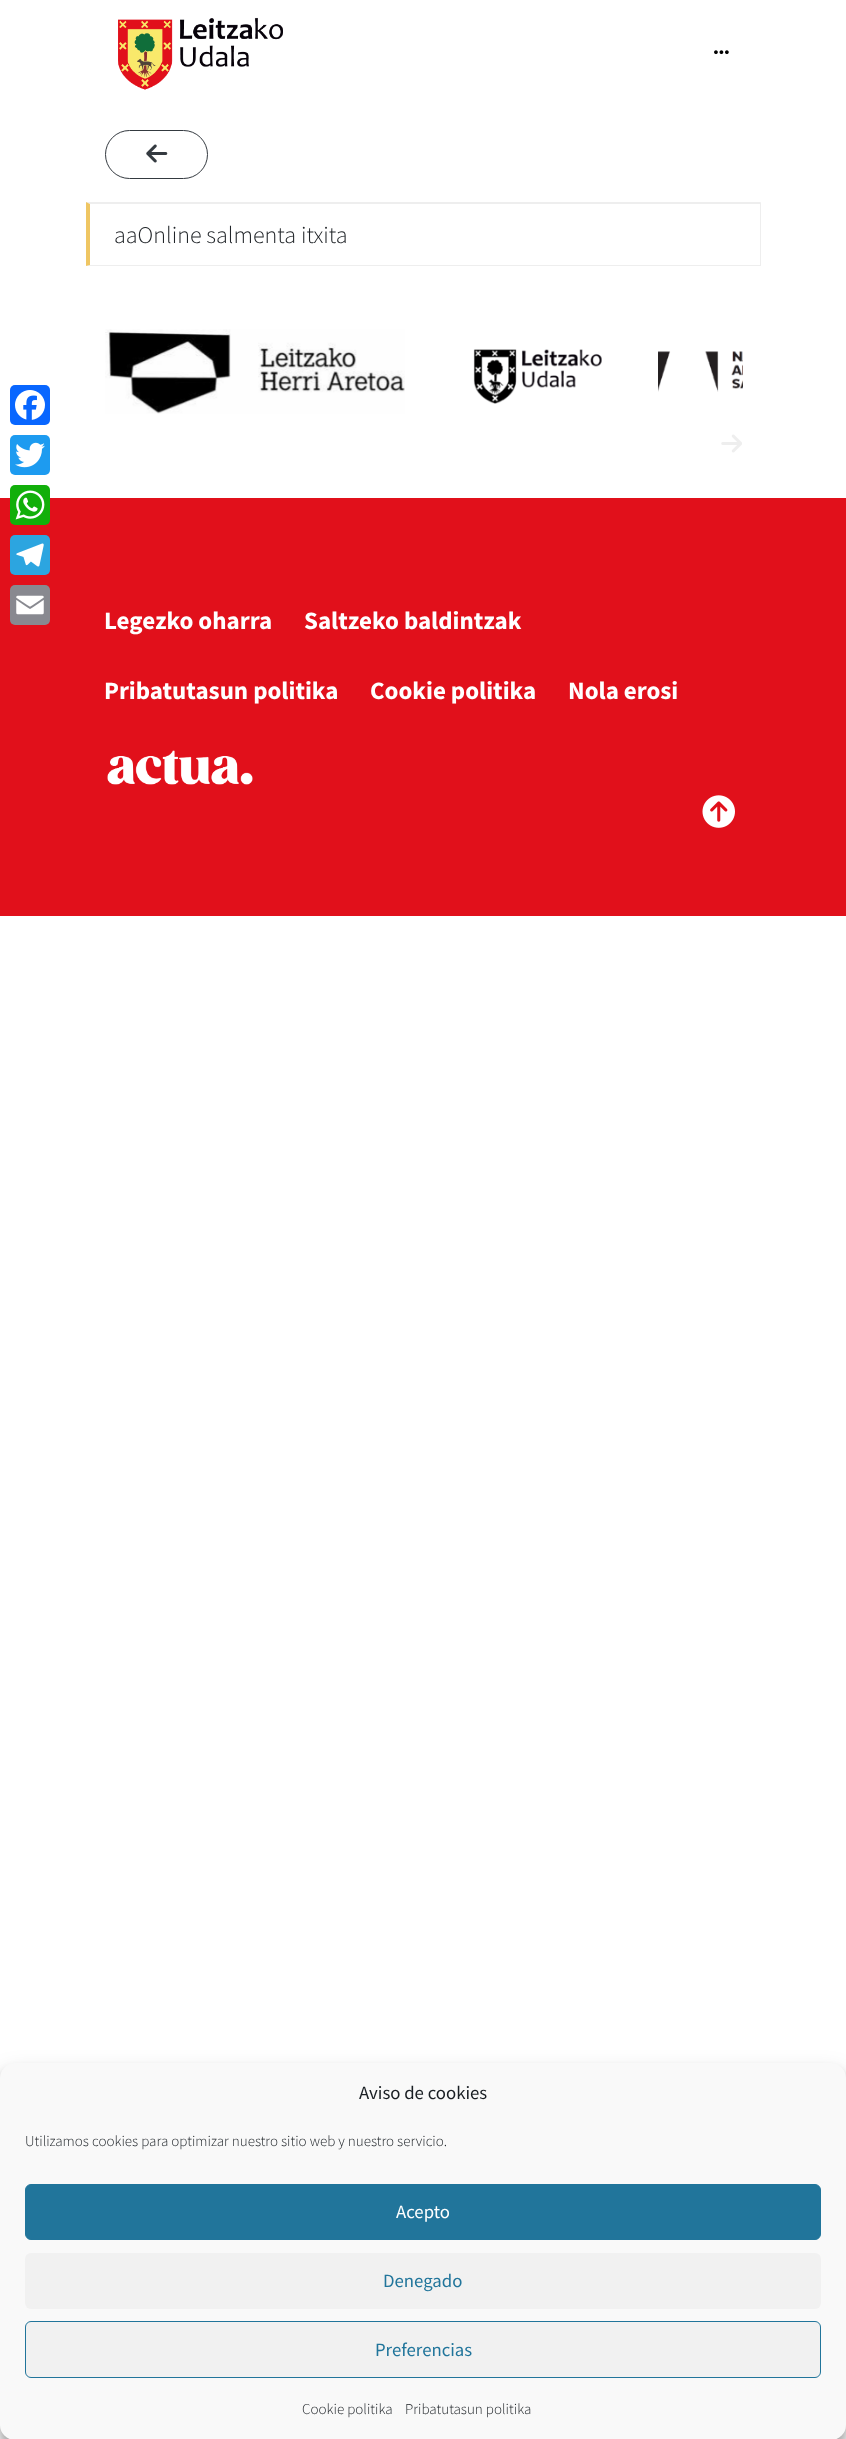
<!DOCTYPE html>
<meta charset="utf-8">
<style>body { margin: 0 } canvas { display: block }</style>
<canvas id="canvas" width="846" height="2439"></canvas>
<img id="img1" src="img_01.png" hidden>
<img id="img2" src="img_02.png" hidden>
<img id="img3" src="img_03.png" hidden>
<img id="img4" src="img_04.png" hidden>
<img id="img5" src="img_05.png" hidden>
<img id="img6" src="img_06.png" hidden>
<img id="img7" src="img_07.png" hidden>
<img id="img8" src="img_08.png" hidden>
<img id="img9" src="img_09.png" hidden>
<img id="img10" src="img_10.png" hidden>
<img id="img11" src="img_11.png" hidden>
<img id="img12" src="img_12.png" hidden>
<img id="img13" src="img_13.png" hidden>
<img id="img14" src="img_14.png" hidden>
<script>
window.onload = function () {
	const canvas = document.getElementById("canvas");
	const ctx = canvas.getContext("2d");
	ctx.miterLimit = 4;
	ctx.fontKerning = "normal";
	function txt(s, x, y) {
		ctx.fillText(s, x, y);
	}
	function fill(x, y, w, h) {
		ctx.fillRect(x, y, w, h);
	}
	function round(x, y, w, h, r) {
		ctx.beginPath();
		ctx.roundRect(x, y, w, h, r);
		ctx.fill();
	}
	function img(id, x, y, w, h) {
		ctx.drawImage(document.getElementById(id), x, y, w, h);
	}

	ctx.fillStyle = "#FFFFFF";
	fill(0, 0, 846, 2439);
	ctx.fillStyle = "#0866FF";
	round(10, 385, 40, 40, 5);
	img("img1", 15, 390, 30, 30);
	ctx.fillStyle = "#1D9BF0";
	round(10, 435, 40, 40, 5);
	img("img2", 15, 442, 30, 26);
	ctx.fillStyle = "#E1101B";
	fill(0, 498, 846, 418);
	ctx.fillStyle = "#12AF0A";
	round(10, 485, 40, 40, 5);
	img("img3", 15, 490, 30, 30);
	ctx.fillStyle = "#2CA5E0";
	round(10, 535, 40, 40, 5);
	img("img4", 16, 543, 28, 24);
	ctx.fillStyle = "#888990";
	round(10, 585, 40, 40, 5);
	img("img5", 16, 595, 28, 20);
	img("img6", 118, 17, 165, 73);
	img("img7", 714, 50, 15, 5);
	ctx.beginPath();
	ctx.roundRect(105.5, 130.5, 102, 48, 24);
	ctx.strokeStyle = "#343A40";
	ctx.stroke();
	img("img8", 146, 144, 22, 19);
	ctx.fillStyle = "#EEEEEE";
	ctx.beginPath();
	ctx.moveTo(86, 202);
	ctx.lineTo(761, 202);
	ctx.lineTo(760, 204);
	ctx.lineTo(90, 204);
	ctx.closePath();
	ctx.fill();
	fill(760, 203, 1, 63);
	ctx.beginPath();
	ctx.moveTo(761, 266);
	ctx.lineTo(86, 266);
	ctx.lineTo(90, 265);
	ctx.lineTo(760, 265);
	ctx.closePath();
	ctx.fill();
	ctx.fillStyle = "#EFC663";
	ctx.beginPath();
	ctx.moveTo(86, 266);
	ctx.lineTo(86, 202);
	ctx.lineTo(90, 204);
	ctx.lineTo(90, 265);
	ctx.closePath();
	ctx.fill();
	img("img9", 105, 329, 300, 85);
	img("img10", 473, 349, 129, 55);
	img("img11", 658, 351, 85, 41);
	img("img12", 721, 434, 21, 19);
	img("img13", 107, 750, 146, 35);
	img("img14", 702, 795, 33, 33);
	ctx.fillStyle = "rgba(0, 0, 0, 0.23)";
	ctx.filter = "blur(4px)";
	ctx.beginPath();
	ctx.roundRect(0, 2070, 846, 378, 15);
	ctx.fill();
	ctx.filter = "none";
	ctx.fillStyle = "rgba(0, 0, 0, 0.19)";
	ctx.filter = "blur(12.5px)";
	ctx.beginPath();
	ctx.roundRect(0, 2075, 846, 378, 15);
	ctx.fill();
	ctx.filter = "none";
	ctx.fillStyle = "#F9F9F9";
	round(0, 2063, 846, 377, 15);
	ctx.fillStyle = "#21759B";
	ctx.beginPath();
	ctx.roundRect(25.5, 2184.5, 795, 55, 5.5);
	ctx.fill();
	ctx.strokeStyle = "#21759B";
	ctx.stroke();
	ctx.fillStyle = "#F1F1F1";
	round(25, 2253, 796, 56, 6);
	ctx.beginPath();
	ctx.roundRect(25.5, 2321.5, 795, 56, 5.5);
	ctx.fill();
	ctx.stroke();
	ctx.font = "300 24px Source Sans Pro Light";
	ctx.fillStyle = "#212529";
	txt("aaOnline salmenta itxita", 114, 243);
	ctx.font = "bold 25px Source Sans Pro";
	ctx.fillStyle = "#FFFFFF";
	txt("Legezko oharra", 104, 629);
	txt("Saltzeko baldintzak", 304, 629);
	txt("Pribatutasun politika", 104, 699);
	txt("Cookie politika", 370, 699);
	txt("Nola erosi", 568, 699);
	ctx.font = "18.75px Source Sans Pro";
	ctx.fillStyle = "#191E23";
	txt("Aviso de cookies", 359, 2099);
	ctx.font = "300 15px Source Sans Pro Light";
	txt("Utilizamos cookies para optimizar nuestro sitio web y nuestro servicio.", 25, 2146);
	ctx.font = "18.75px Source Sans Pro";
	ctx.fillStyle = "#FFFFFF";
	txt("Acepto", 396, 2218);
	ctx.fillStyle = "#21759B";
	txt("Denegado", 383, 2287);
	txt("Preferencias", 375, 2356);
	ctx.font = "300 15px Source Sans Pro Light";
	ctx.fillStyle = "#191E23";
	txt("Cookie politika", 302, 2414);
	txt("Pribatutasun politika", 405, 2414);
};
</script>
